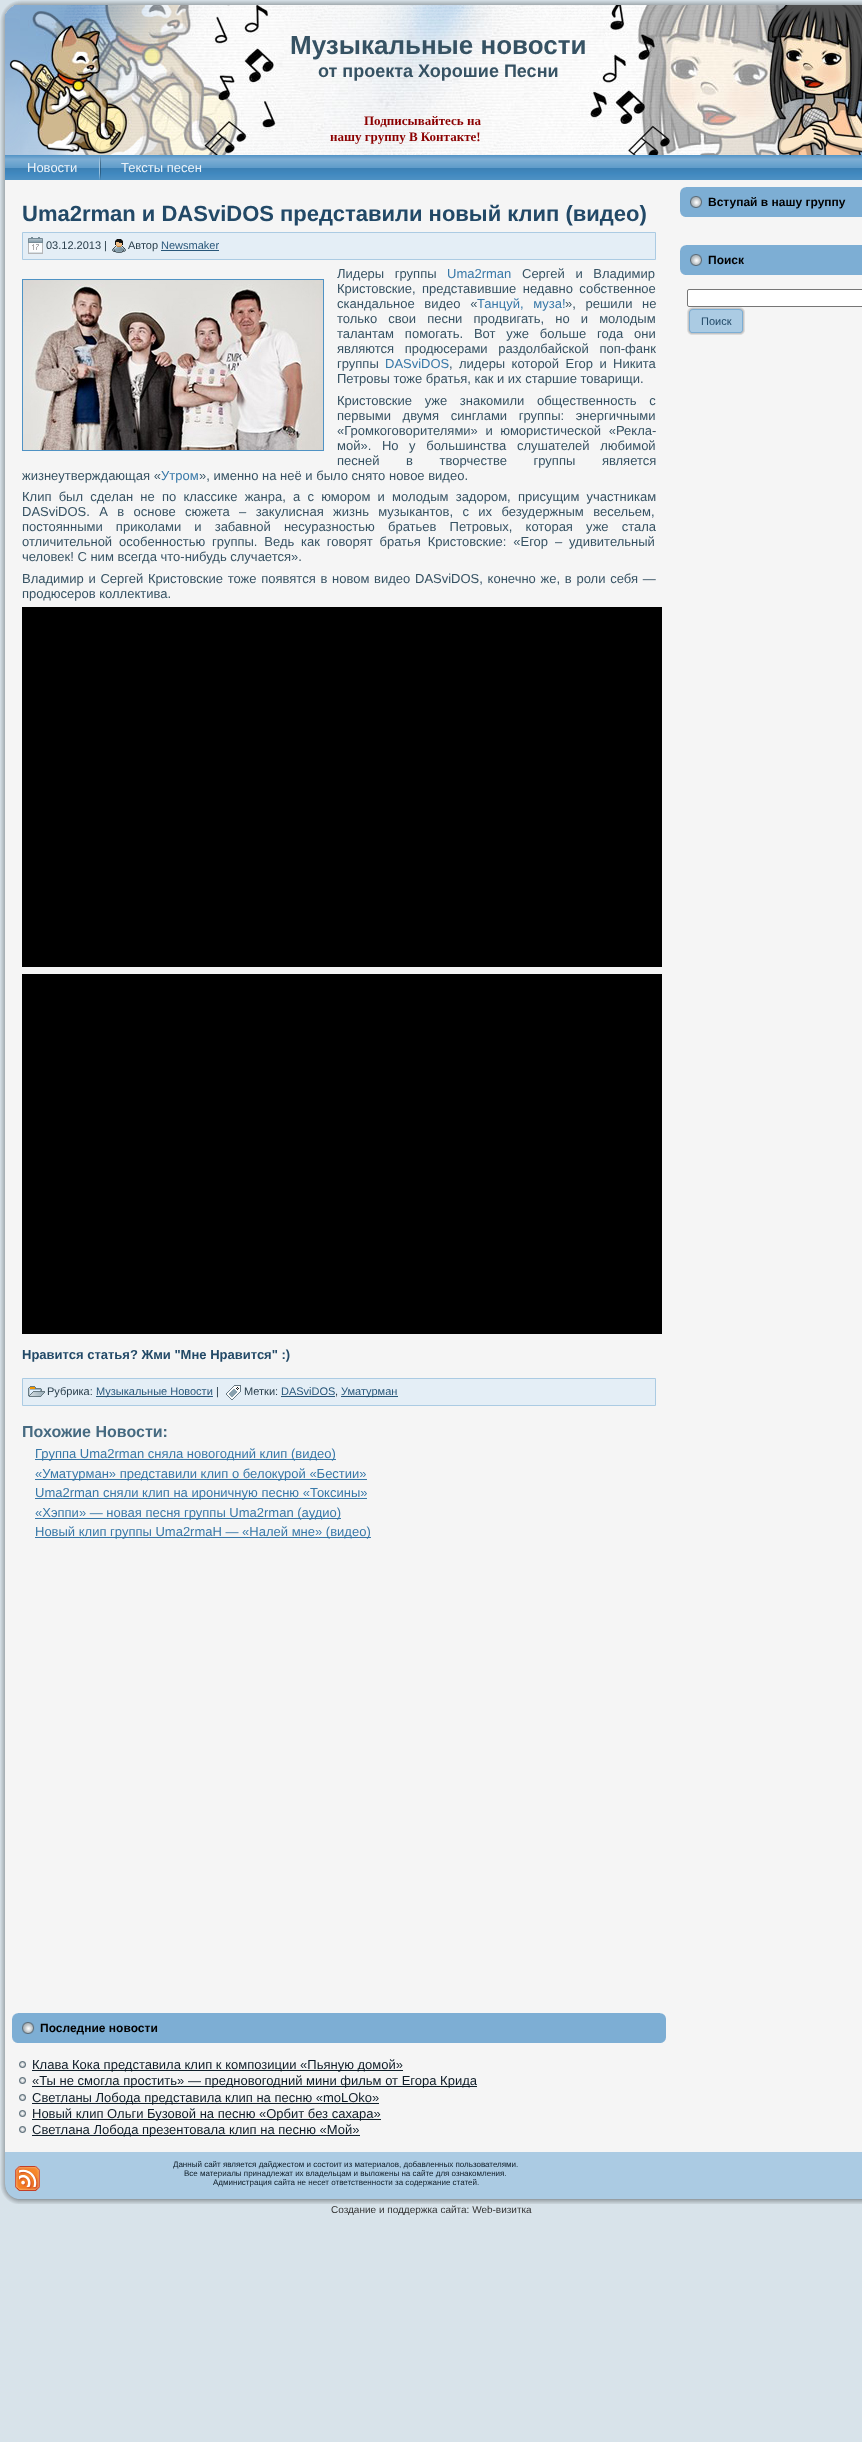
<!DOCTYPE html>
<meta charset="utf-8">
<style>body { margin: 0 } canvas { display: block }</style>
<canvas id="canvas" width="862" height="2442"></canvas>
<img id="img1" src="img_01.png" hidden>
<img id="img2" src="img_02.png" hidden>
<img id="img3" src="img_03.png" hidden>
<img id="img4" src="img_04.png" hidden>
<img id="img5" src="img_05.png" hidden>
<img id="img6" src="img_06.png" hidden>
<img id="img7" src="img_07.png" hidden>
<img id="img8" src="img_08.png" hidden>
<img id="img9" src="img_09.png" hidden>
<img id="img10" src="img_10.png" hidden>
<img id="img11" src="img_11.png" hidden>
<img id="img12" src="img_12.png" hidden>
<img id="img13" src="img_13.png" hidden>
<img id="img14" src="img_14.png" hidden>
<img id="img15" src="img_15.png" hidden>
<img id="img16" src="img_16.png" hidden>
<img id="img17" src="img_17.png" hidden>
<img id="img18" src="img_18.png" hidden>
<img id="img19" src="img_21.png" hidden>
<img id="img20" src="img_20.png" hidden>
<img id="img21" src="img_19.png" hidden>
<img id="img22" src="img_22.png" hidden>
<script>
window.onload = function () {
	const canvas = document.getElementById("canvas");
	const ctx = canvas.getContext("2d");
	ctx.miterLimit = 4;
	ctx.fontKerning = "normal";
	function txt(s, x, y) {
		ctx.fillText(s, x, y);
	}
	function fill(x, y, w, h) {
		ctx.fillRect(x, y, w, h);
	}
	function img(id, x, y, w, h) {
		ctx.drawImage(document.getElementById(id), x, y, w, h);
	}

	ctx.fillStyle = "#D8E3EA";
	fill(0, 0, 862, 2442);
	img("img1", 0, 0, 35, 35);
	img("img2", 35, 0, 827, 5);
	img("img3", 0, 35, 35, 2134);
	ctx.fillStyle = "#F5F5F5";
	fill(35, 153, 827, 1999);
	img("img4", 5, 5, 857, 150);
	img("img5", 20, 20, 842, 120);
	img("img6", 5, 155, 857, 25);
	img("img7", 99, 156, 2, 24);
	ctx.fillStyle = "#E4EEF6";
	ctx.beginPath();
	ctx.rect(22.5, 232.5, 633, 27);
	ctx.fill();
	ctx.strokeStyle = "#ABCBE3";
	ctx.stroke();
	img("img8", 28, 237, 15, 17);
	img("img9", 112, 239, 14, 14);
	ctx.fillStyle = "#29577A";
	fill(161, 250, 58, 1);
	ctx.strokeStyle = "#4F92C4";
	ctx.strokeRect(22.5, 279.5, 301, 171);
	img("img10", 23, 280, 300, 170);
	ctx.fillStyle = "#000000";
	fill(22, 607, 640, 360);
	fill(22, 974, 640, 360);
	ctx.fillStyle = "#E4EEF6";
	ctx.beginPath();
	ctx.rect(22.5, 1378.5, 633, 27);
	ctx.fill();
	ctx.strokeStyle = "#ABCBE3";
	ctx.stroke();
	img("img11", 28, 1386, 17, 11);
	ctx.fillStyle = "#29577A";
	fill(96, 1396, 117, 1);
	img("img12", 226, 1385, 15, 15);
	fill(281, 1396, 54, 1);
	fill(341, 1396, 57, 1);
	ctx.fillStyle = "#3878A8";
	fill(35, 1459, 301, 1);
	fill(35, 1479, 332, 1);
	fill(35, 1498, 332, 1);
	fill(35, 1518, 306, 1);
	fill(35, 1537, 336, 1);
	img("img13", 12, 2013, 632, 30);
	img("img14", 644, 2013, 22, 30);
	img("img15", 19, 2061, 7, 7);
	ctx.fillStyle = "#0E1E2A";
	fill(32, 2070, 371, 1);
	img("img15", 19, 2077, 7, 7);
	fill(32, 2086, 445, 1);
	img("img15", 19, 2094, 7, 7);
	fill(32, 2103, 347, 1);
	img("img15", 19, 2110, 7, 7);
	fill(32, 2119, 349, 1);
	img("img15", 19, 2126, 7, 7);
	fill(32, 2135, 328, 1);
	img("img16", 680, 187, 182, 30);
	img("img16", 680, 245, 182, 30);
	ctx.fillStyle = "#FFFFFF";
	ctx.beginPath();
	ctx.roundRect(687.5, 289.5, 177, 17, 1.5);
	ctx.fill();
	ctx.strokeStyle = "#767676";
	ctx.stroke();
	img("img17", 687, 307, 50, 28);
	img("img18", 737, 307, 8, 28);
	img("img19", 0, 2169, 35, 35);
	ctx.fillStyle = "#ABCBE3";
	fill(5, 2152, 857, 32);
	img("img20", 5, 2184, 15, 15);
	fill(20, 2184, 842, 15);
	img("img21", 15, 2166, 25, 25);
	img("img22", 35, 2199, 827, 5);
	ctx.font = "bold 26px Liberation Sans";
	ctx.fillStyle = "#365263";
	txt("Музыкальные новости", 290, 54);
	ctx.font = "bold 18px Liberation Sans";
	txt("от проекта Хорошие Песни", 318, 77);
	ctx.font = "bold 13px Liberation Serif";
	ctx.fillStyle = "#8B0000";
	txt("Подписывайтесь на", 364, 125);
	txt("нашу группу В Контакте!", 330, 141);
	ctx.font = "13px Liberation Sans";
	ctx.fillStyle = "#ECF3F9";
	txt("Новости", 27, 172);
	txt("Тексты песен", 121, 172);
	ctx.font = "bold 22px Liberation Sans";
	ctx.fillStyle = "#224967";
	txt("Uma2rman и DASviDOS представили новый клип (видео)", 22, 221);
	ctx.font = "11px Liberation Sans";
	ctx.fillStyle = "#273C49";
	txt("03.12.2013 |", 46, 249);
	txt("Автор", 128, 249);
	ctx.fillStyle = "#29577A";
	txt("Newsmaker", 161, 249);
	ctx.wordSpacing = "7px";
	ctx.font = "13px Liberation Sans";
	ctx.fillStyle = "#365263";
	txt("Лидеры группы", 337, 278);
	ctx.wordSpacing = "0px";
	ctx.fillStyle = "#3878A8";
	txt("Uma2rman", 447, 278);
	ctx.wordSpacing = "7px";
	ctx.fillStyle = "#365263";
	txt("Сергей и Владимир", 522, 278);
	ctx.wordSpacing = "2.75px";
	txt("Кристовские, представившие недавно собственное", 337, 293);
	ctx.wordSpacing = "6px";
	txt("скандальное видео «", 337, 308);
	ctx.fillStyle = "#3878A8";
	txt("Танцуй, муза!", 477, 308);
	ctx.fillStyle = "#365263";
	txt("», решили не", 565, 308);
	ctx.wordSpacing = "7.5px";
	txt("только свои песни продвигать, но и молодым", 337, 323);
	ctx.wordSpacing = "7.25px";
	txt("талантам помогать. Вот уже больше года они", 337, 338);
	ctx.wordSpacing = "7px";
	txt("являются продюсерами раздолбайской поп-фанк", 337, 353);
	ctx.wordSpacing = "0px";
	txt("группы", 337, 368);
	ctx.fillStyle = "#3878A8";
	txt("DASviDOS", 385, 368);
	ctx.wordSpacing = "2.75px";
	ctx.fillStyle = "#365263";
	txt(", лидеры которой Егор и Никита", 449, 368);
	ctx.wordSpacing = "0px";
	txt("Петровы тоже братья, как и их старшие товарищи.", 337, 383);
	ctx.wordSpacing = "9px";
	txt("Кристовские уже знакомили общественность с", 337, 405);
	ctx.wordSpacing = "8px";
	txt("первыми двумя синглами группы: энергичными", 337, 420);
	ctx.wordSpacing = "4px";
	txt("«Громкоговорителями» и юмористической «Рекла-", 337, 435);
	ctx.wordSpacing = "7px";
	txt("мой». Но у большинства слушателей любимой", 337, 450);
	ctx.wordSpacing = "23px";
	txt("песней в творчестве группы является", 337, 465);
	ctx.wordSpacing = "0px";
	txt("жизнеутверждающая «", 22, 480);
	ctx.fillStyle = "#3878A8";
	txt("Утром", 161, 480);
	ctx.fillStyle = "#365263";
	txt("», именно на неё и было снято новое видео.", 199, 480);
	ctx.wordSpacing = "3.6px";
	txt("Клип был сделан не по классике жанра, а с юмором и молодым задором, присущим участникам", 22, 501);
	ctx.wordSpacing = "5.75px";
	txt("DASviDOS. А в основе сюжета – закулисная жизнь музыкантов, с их безудержным весельем,", 22, 516);
	ctx.wordSpacing = "9.5px";
	txt("постоянными приколами и забавной несуразностью братьев Петровых, которая уже стала", 22, 531);
	ctx.wordSpacing = "3.25px";
	txt("отличительной особенностью группы. Ведь как говорят братья Кристовские: «Егор – удивительный", 22, 546);
	ctx.wordSpacing = "0px";
	txt("человек! С ним всегда что-нибудь случается».", 22, 561);
	ctx.wordSpacing = "1.1px";
	txt("Владимир и Сергей Кристовские тоже появятся в новом видео DASviDOS, конечно же, в роли себя —", 22, 583);
	ctx.wordSpacing = "0px";
	txt("продюсеров коллектива.", 22, 598);
	ctx.font = "bold 13px Liberation Sans";
	ctx.fillStyle = "#224967";
	txt("Нравится статья? Жми \"Мне Нравится\" :)", 22, 1359);
	ctx.font = "11px Liberation Sans";
	ctx.fillStyle = "#273C49";
	txt("Рубрика:", 47, 1395);
	ctx.fillStyle = "#29577A";
	txt("Музыкальные Новости", 96, 1395);
	ctx.fillStyle = "#273C49";
	txt("|", 216, 1395);
	txt("Метки:", 244, 1395);
	ctx.fillStyle = "#29577A";
	txt("DASviDOS", 281, 1395);
	ctx.fillStyle = "#273C49";
	txt(",", 335, 1395);
	ctx.fillStyle = "#29577A";
	txt("Уматурман", 341, 1395);
	ctx.font = "bold 16px Liberation Sans";
	ctx.fillStyle = "#466A81";
	txt("Похожие Новости:", 22, 1437);
	ctx.font = "13px Liberation Sans";
	ctx.fillStyle = "#3878A8";
	txt("Группа Uma2rman сняла новогодний клип (видео)", 35, 1458);
	txt("«Уматурман» представили клип о белокурой «Бестии»", 35, 1478);
	txt("Uma2rman сняли клип на ироничную песню «Токсины»", 35, 1497);
	txt("«Хэппи» — новая песня группы Uma2rman (аудио)", 35, 1517);
	txt("Новый клип группы Uma2rmaH — «Налей мне» (видео)", 35, 1536);
	ctx.font = "bold 12px Liberation Sans";
	ctx.fillStyle = "#000000";
	txt("Последние новости", 40, 2032);
	ctx.font = "13px Liberation Sans";
	ctx.fillStyle = "#0D1B26";
	txt("Клава Кока представила клип к композиции «Пьяную домой»", 32, 2069);
	txt("«Ты не смогла простить» — предновогодний мини фильм от Егора Крида", 32, 2085);
	txt("Светланы Лобода представила клип на песню «moLOko»", 32, 2102);
	txt("Новый клип Ольги Бузовой на песню «Орбит без сахара»", 32, 2118);
	txt("Светлана Лобода презентовала клип на песню «Мой»", 32, 2134);
	ctx.font = "bold 12px Liberation Sans";
	ctx.fillStyle = "#000000";
	txt("Вступай в нашу группу", 708, 206);
	txt("Поиск", 708, 264);
	ctx.font = "11px Liberation Sans";
	ctx.fillStyle = "#224967";
	txt("Поиск", 701, 325);
	ctx.font = "8px Liberation Sans";
	ctx.fillStyle = "#0D1B26";
	txt("Данный сайт является дайджестом и состоит из материалов, добавленных пользователями.", 173, 2167);
	txt("Все материалы принадлежат их владельцам и выложены на сайте для ознакомления.", 184, 2176);
	txt("Администрация сайта не несет ответственности за содержание статей.", 213, 2185);
	ctx.font = "10px Liberation Sans";
	ctx.fillStyle = "#333333";
	txt("Создание и поддержка сайта: Web-визитка", 331, 2213);
};
</script>
